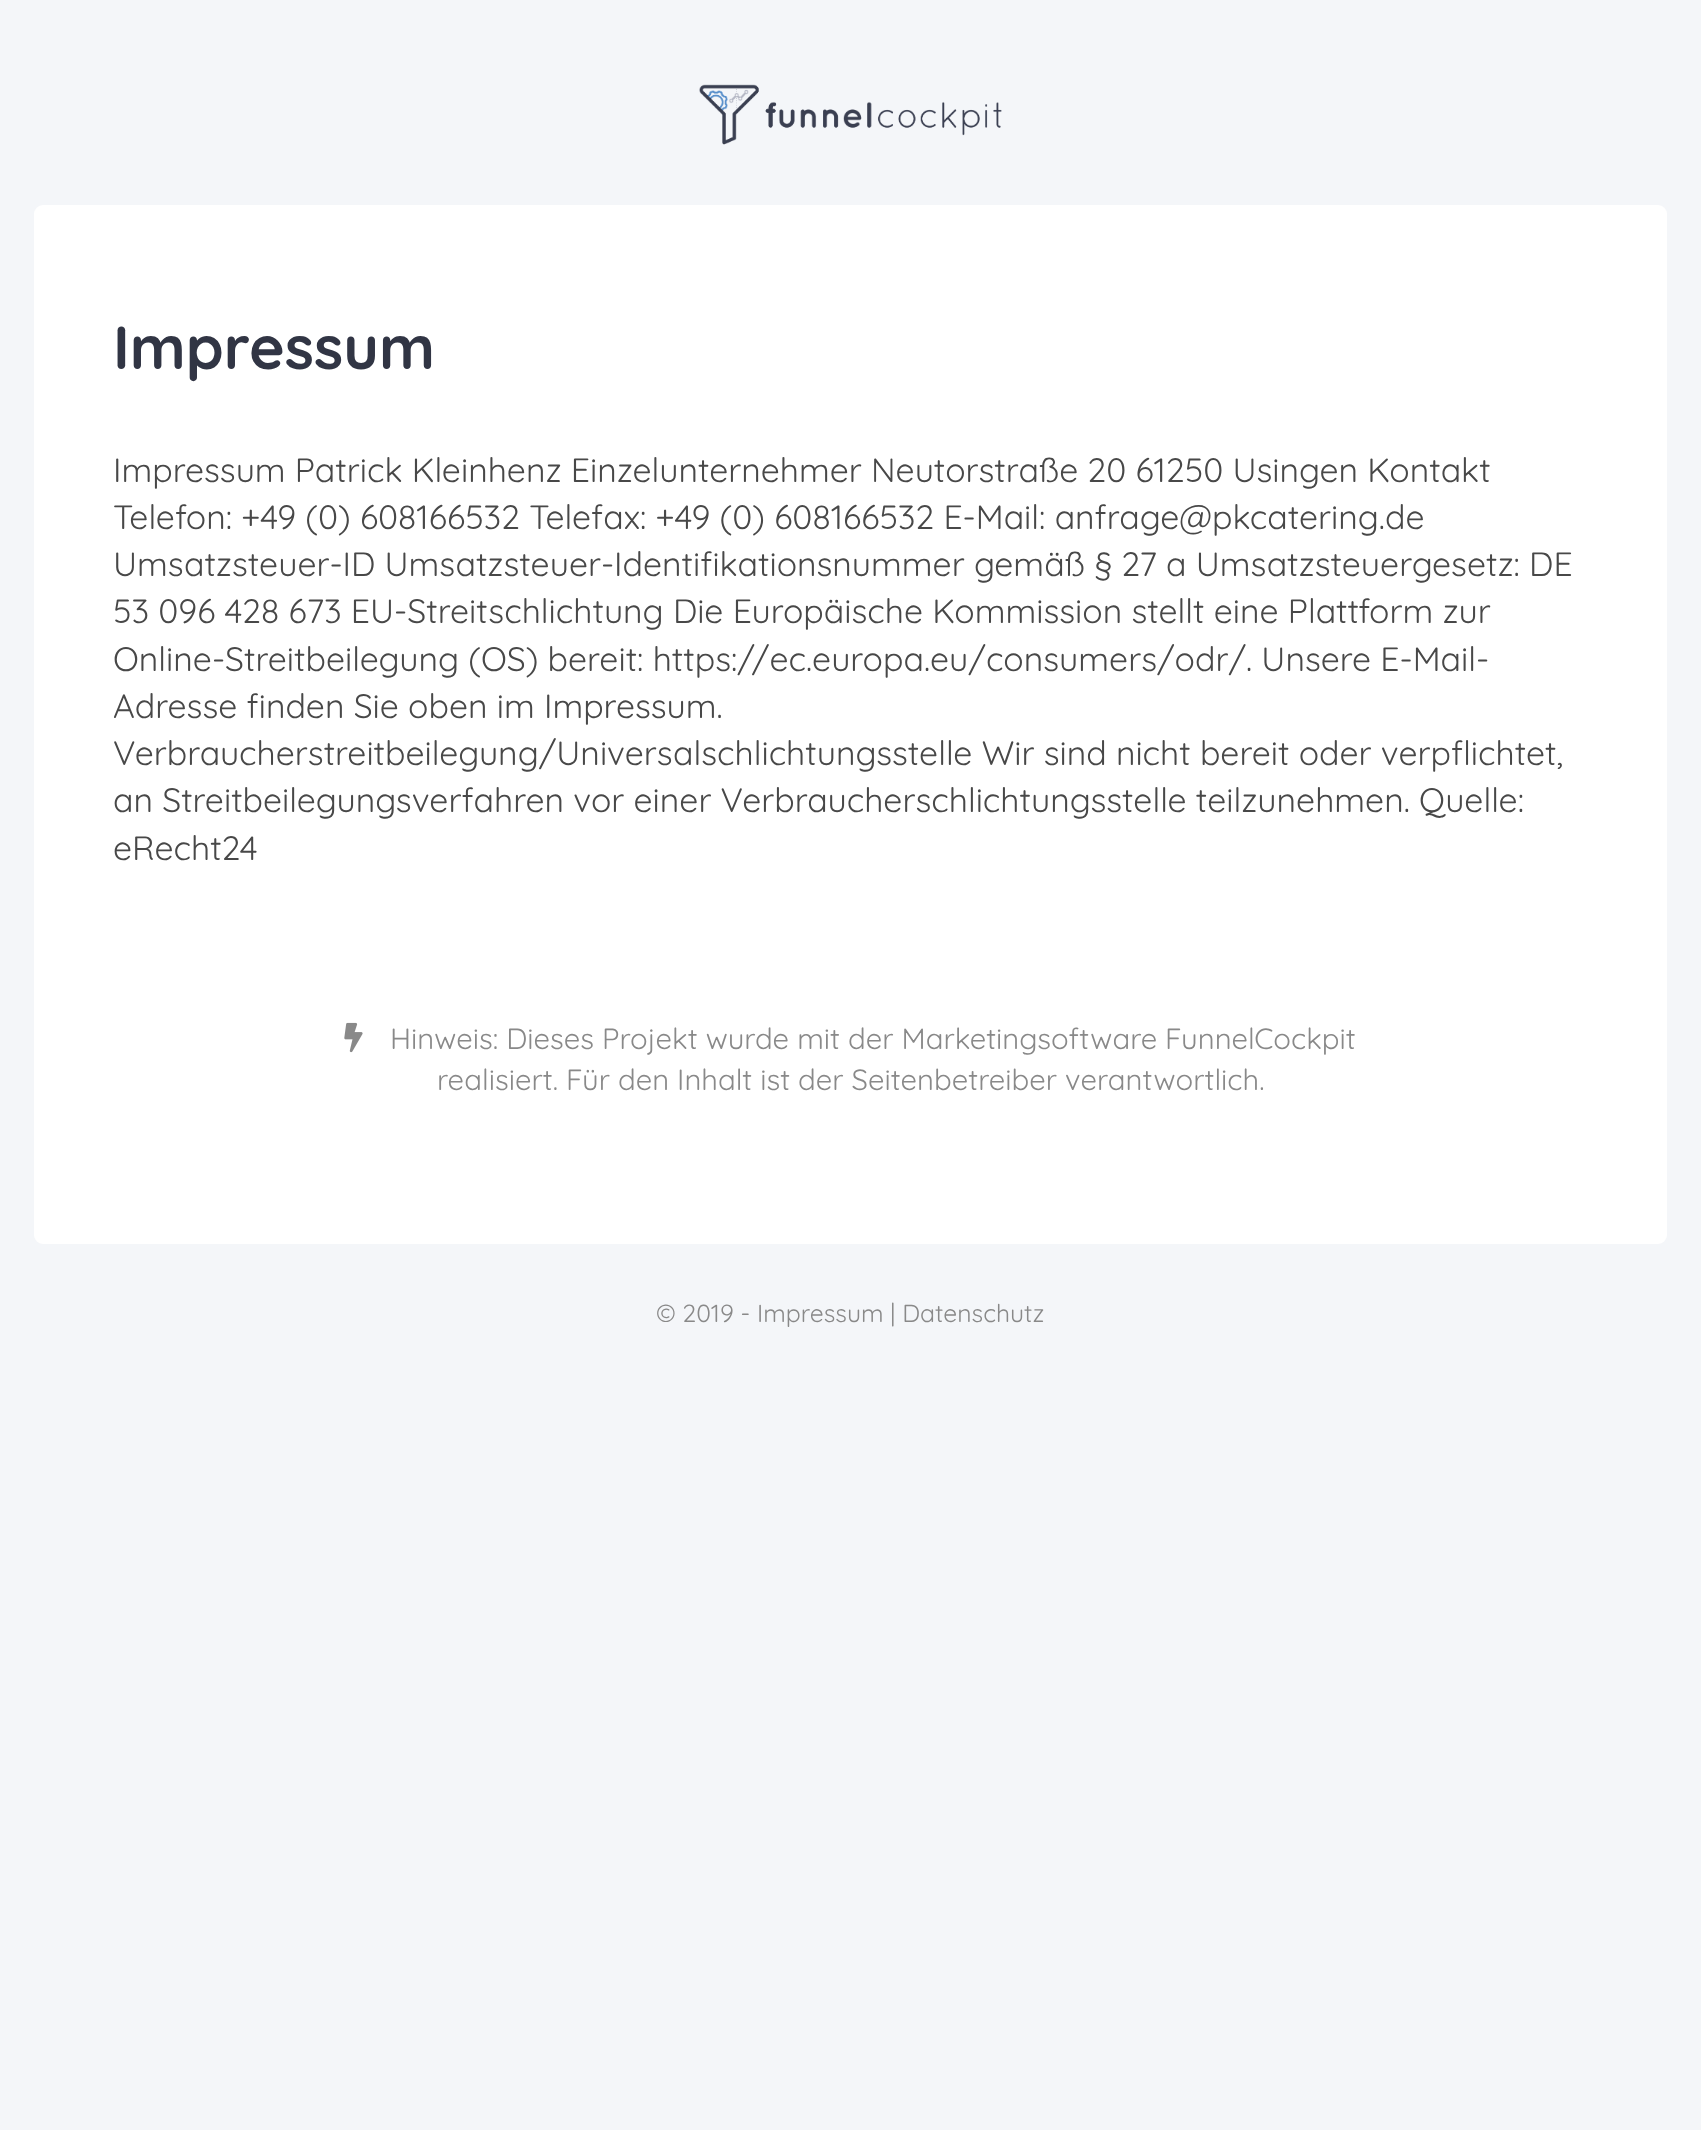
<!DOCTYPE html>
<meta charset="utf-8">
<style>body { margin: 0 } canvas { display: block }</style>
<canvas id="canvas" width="1701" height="2130"></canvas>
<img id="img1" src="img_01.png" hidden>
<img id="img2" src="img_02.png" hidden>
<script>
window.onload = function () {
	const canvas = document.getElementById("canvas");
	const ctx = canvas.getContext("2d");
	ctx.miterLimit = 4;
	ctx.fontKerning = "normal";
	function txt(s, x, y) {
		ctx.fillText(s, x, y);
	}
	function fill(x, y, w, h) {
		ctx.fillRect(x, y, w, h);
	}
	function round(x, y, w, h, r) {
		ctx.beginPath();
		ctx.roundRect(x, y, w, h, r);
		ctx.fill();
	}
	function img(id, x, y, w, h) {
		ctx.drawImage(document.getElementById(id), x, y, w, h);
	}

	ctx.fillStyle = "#F4F6F9";
	fill(0, 0, 1701, 2130);
	img("img1", 699, 84, 303, 61);
	ctx.fillStyle = "#FFFFFF";
	round(34, 205, 1633, 1039, 9);
	img("img2", 344, 1022, 19, 31);
	ctx.font = "bold 60.75px Quicksand";
	ctx.fillStyle = "#313544";
	txt("Impressum", 113, 369);
	ctx.font = "33.75px Quicksand";
	ctx.fillStyle = "#484848";
	txt("Impressum Patrick Kleinhenz Einzelunternehmer Neutorstraße 20 61250 Usingen Kontakt", 113, 482);
	txt("Telefon: +49 (0) 608166532 Telefax: +49 (0) 608166532 E-Mail: anfrage@pkcatering.de", 113, 529);
	txt("Umsatzsteuer-ID Umsatzsteuer-Identifikationsnummer gemäß § 27 a Umsatzsteuergesetz: DE", 113, 576);
	txt("53 096 428 673 EU-Streitschlichtung Die Europäische Kommission stellt eine Plattform zur", 113, 623);
	txt("Online-Streitbeilegung (OS) bereit: https://ec.europa.eu/consumers/odr/. Unsere E-Mail-", 113, 671);
	txt("Adresse finden Sie oben im Impressum.", 113, 718);
	txt("Verbraucherstreitbeilegung/Universalschlichtungsstelle Wir sind nicht bereit oder verpflichtet,", 113, 765);
	txt("an Streitbeilegungsverfahren vor einer Verbraucherschlichtungsstelle teilzunehmen. Quelle:", 113, 812);
	txt("eRecht24", 113, 860);
	ctx.font = "29.25px Quicksand";
	ctx.fillStyle = "#898989";
	txt("Hinweis: Dieses Projekt wurde mit der Marketingsoftware", 390, 1049);
	txt("FunnelCockpit", 1165, 1049);
	txt("realisiert. Für den Inhalt ist der Seitenbetreiber verantwortlich.", 437, 1090);
	ctx.font = "24.75px Quicksand";
	txt("© 2019 - Impressum | Datenschutz", 656, 1322);
};
</script>
